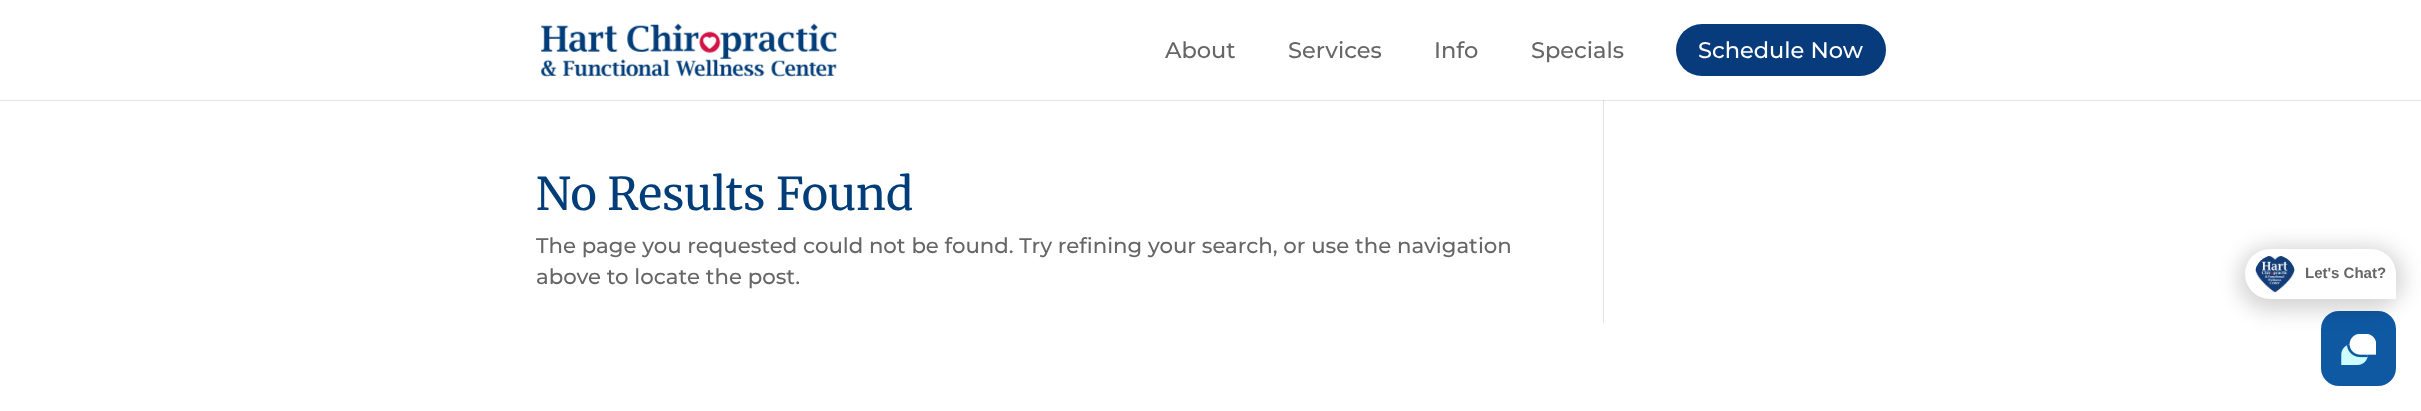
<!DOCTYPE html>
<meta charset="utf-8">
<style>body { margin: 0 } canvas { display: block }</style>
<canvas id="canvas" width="2421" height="411"></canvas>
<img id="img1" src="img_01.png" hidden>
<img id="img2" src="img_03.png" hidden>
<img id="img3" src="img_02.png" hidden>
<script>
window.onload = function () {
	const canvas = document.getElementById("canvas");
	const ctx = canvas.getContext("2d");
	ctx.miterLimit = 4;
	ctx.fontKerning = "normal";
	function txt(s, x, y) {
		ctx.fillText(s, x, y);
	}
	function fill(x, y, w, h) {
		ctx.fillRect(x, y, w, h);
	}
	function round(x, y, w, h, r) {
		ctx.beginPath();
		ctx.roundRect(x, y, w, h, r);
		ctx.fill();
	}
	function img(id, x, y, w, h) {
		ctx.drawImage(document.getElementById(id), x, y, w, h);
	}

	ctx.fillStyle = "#FFFFFF";
	fill(0, 0, 2421, 411);
	ctx.fillStyle = "#E6E6E6";
	fill(0, 100, 2421, 1);
	img("img1", 541, 23, 296, 54);
	ctx.fillStyle = "#073B7B";
	round(1676, 24, 210, 52, 26);
	ctx.fillStyle = "#E2E2E2";
	fill(1603, 100, 1, 223);
	ctx.fillStyle = "#CBCBCB";
	fill(1603, 100, 1, 1);
	ctx.fillStyle = "#0F59A3";
	round(2321, 311, 75, 75, 18);
	img("img2", 2341, 334, 35, 31);
	ctx.fillStyle = "rgba(0, 0, 0, 0.16)";
	ctx.filter = "blur(10px)";
	ctx.beginPath();
	ctx.roundRect(2238, 246, 166, 65, 32.5);
	ctx.fill();
	ctx.filter = "none";
	ctx.fillStyle = "#FFFFFF";
	ctx.beginPath();
	ctx.roundRect(2245, 249, 151, 50, [25, 25, 0, 25]);
	ctx.fill();
	img("img3", 2255, 255, 40, 38);
	ctx.font = "500 22.5px Montserrat";
	ctx.fillStyle = "#666666";
	txt("About", 1165, 58);
	txt("Services", 1288, 58);
	txt("Info", 1434, 58);
	txt("Specials", 1531, 58);
	ctx.fillStyle = "#FFFFFF";
	txt("Schedule Now", 1698, 58);
	ctx.font = "45px Merriweather";
	ctx.fillStyle = "#003D79";
	txt("No Results Found", 536, 210);
	ctx.font = "500 21.25px Montserrat";
	ctx.fillStyle = "#666666";
	txt("The page you requested could not be found. Try refining your search, or use the navigation", 536, 253);
	txt("above to locate the post.", 536, 284);
	ctx.font = "bold 15px Liberation Sans";
	txt("Let's Chat?", 2305, 278);
};
</script>
